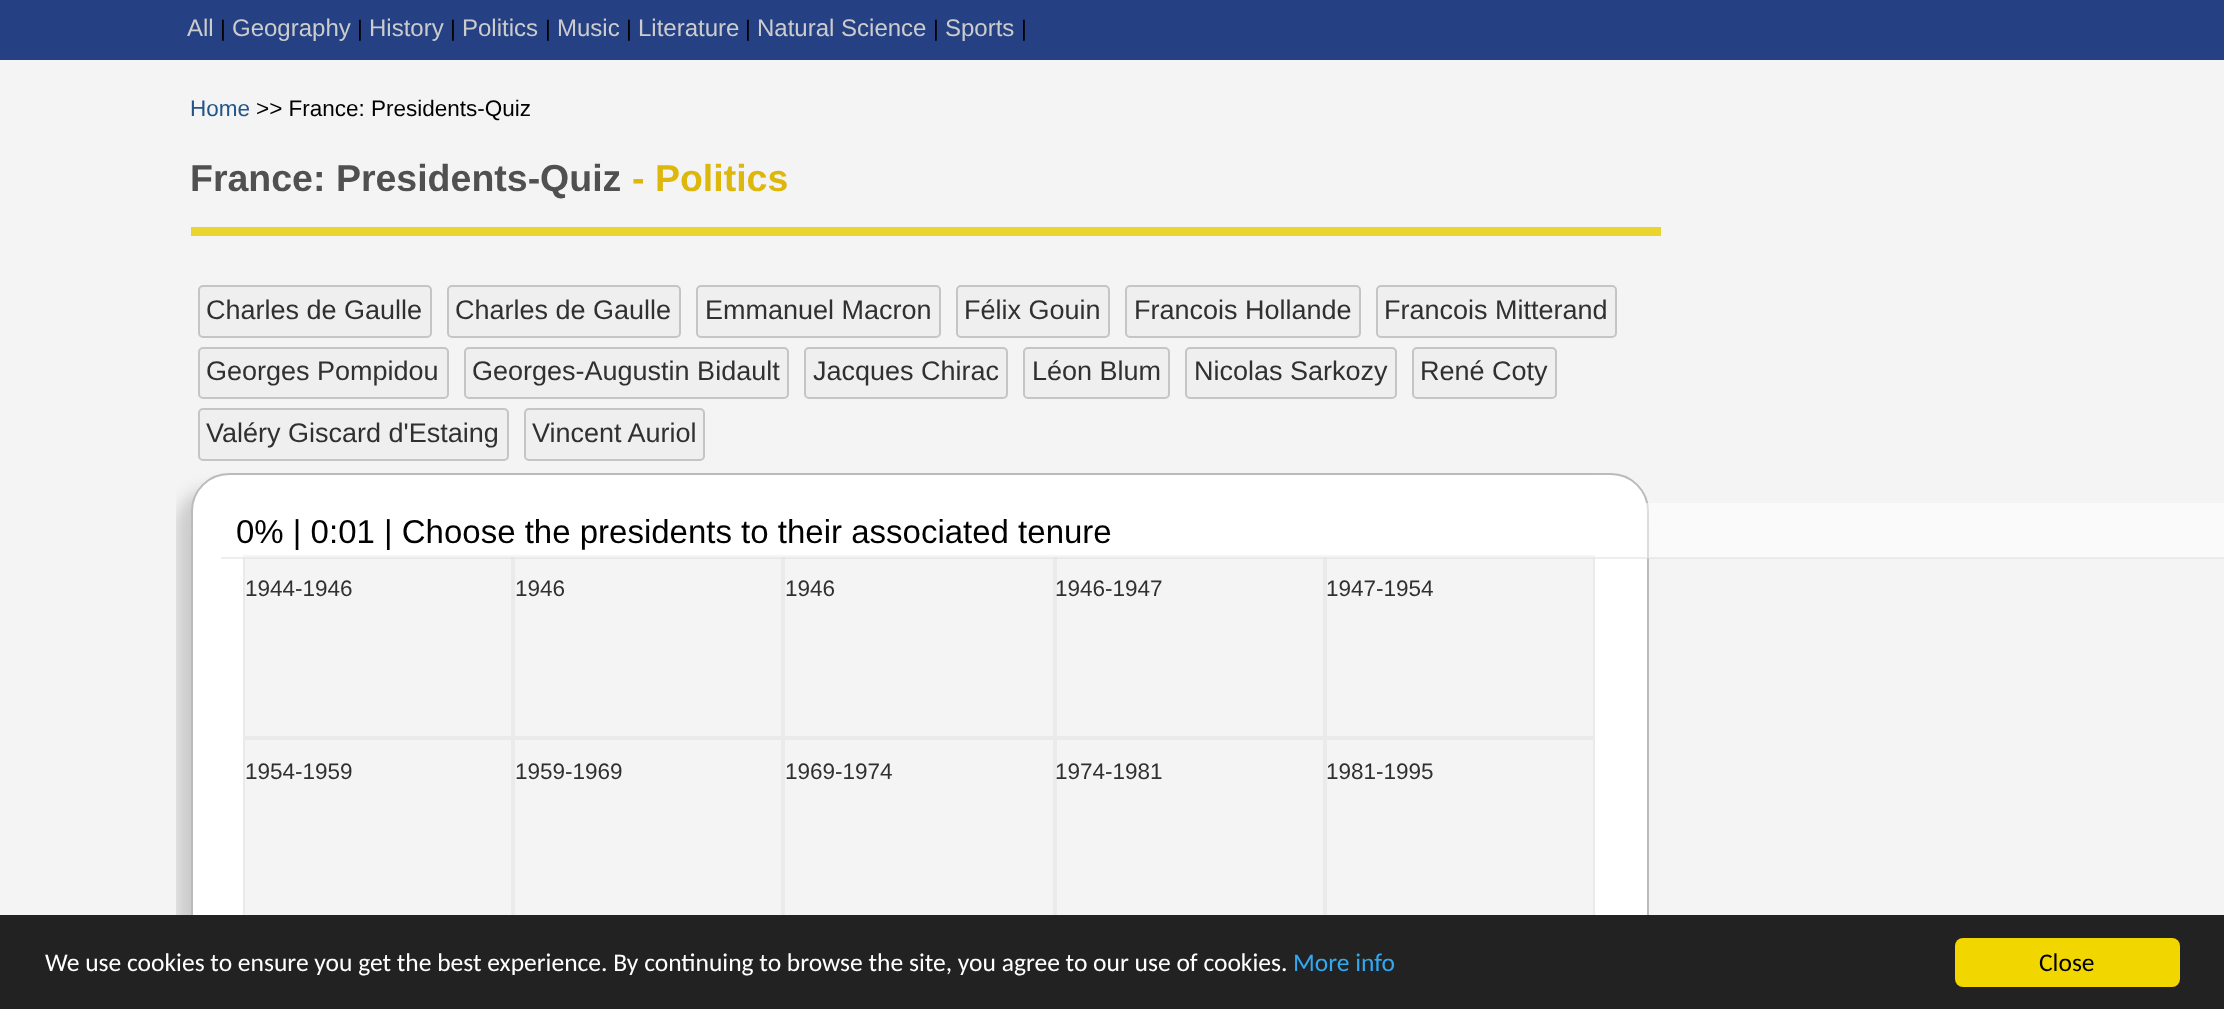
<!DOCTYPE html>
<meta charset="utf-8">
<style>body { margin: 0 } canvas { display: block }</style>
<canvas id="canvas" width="2224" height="1009"></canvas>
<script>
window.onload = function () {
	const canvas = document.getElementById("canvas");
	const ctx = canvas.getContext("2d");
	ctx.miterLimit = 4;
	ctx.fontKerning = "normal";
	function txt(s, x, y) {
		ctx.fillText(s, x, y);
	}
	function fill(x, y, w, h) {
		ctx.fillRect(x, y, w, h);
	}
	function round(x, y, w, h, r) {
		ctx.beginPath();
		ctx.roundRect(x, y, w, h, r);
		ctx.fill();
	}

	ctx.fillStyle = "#F4F4F4";
	fill(0, 0, 2224, 1009);
	ctx.fillStyle = "#254183";
	fill(0, 0, 2224, 60);
	ctx.fillStyle = "#EAD52E";
	fill(191, 227, 1470, 9);
	ctx.fillStyle = "#EFEFEF";
	ctx.beginPath();
	ctx.roundRect(199, 286, 232, 51, 4);
	ctx.fill();
	ctx.strokeStyle = "#C5C5C5";
	ctx.lineWidth = 2;
	ctx.stroke();
	ctx.beginPath();
	ctx.roundRect(448, 286, 232, 51, 4);
	ctx.fill();
	ctx.stroke();
	ctx.beginPath();
	ctx.roundRect(697, 286, 243, 51, 4);
	ctx.fill();
	ctx.stroke();
	ctx.beginPath();
	ctx.roundRect(957, 286, 152, 51, 4);
	ctx.fill();
	ctx.stroke();
	ctx.beginPath();
	ctx.roundRect(1126, 286, 234, 51, 4);
	ctx.fill();
	ctx.stroke();
	ctx.beginPath();
	ctx.roundRect(1377, 286, 239, 51, 4);
	ctx.fill();
	ctx.stroke();
	ctx.beginPath();
	ctx.roundRect(199, 348, 249, 50, 4);
	ctx.fill();
	ctx.stroke();
	ctx.beginPath();
	ctx.roundRect(465, 348, 323, 50, 4);
	ctx.fill();
	ctx.stroke();
	ctx.beginPath();
	ctx.roundRect(805, 348, 202, 50, 4);
	ctx.fill();
	ctx.stroke();
	ctx.beginPath();
	ctx.roundRect(1024, 348, 145, 50, 4);
	ctx.fill();
	ctx.stroke();
	ctx.beginPath();
	ctx.roundRect(1186, 348, 210, 50, 4);
	ctx.fill();
	ctx.stroke();
	ctx.beginPath();
	ctx.roundRect(1413, 348, 143, 50, 4);
	ctx.fill();
	ctx.stroke();
	ctx.beginPath();
	ctx.roundRect(199, 409, 309, 51, 4);
	ctx.fill();
	ctx.stroke();
	ctx.beginPath();
	ctx.roundRect(525, 409, 179, 51, 4);
	ctx.fill();
	ctx.stroke();
	ctx.save();
	ctx.beginPath();
	ctx.rect(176, 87, 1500, 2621);
	ctx.clip();
	ctx.fillStyle = "#CCCCCC";
	ctx.filter = "blur(7.5px)";
	ctx.beginPath();
	ctx.roundRect(176, 488, 1458, 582, 38);
	ctx.fill();
	ctx.filter = "none";
	ctx.restore();
	ctx.fillStyle = "#FFFFFF";
	ctx.beginPath();
	ctx.roundRect(192, 474, 1456, 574, 37);
	ctx.fill();
	ctx.strokeStyle = "#BBBBBB";
	ctx.stroke();
	ctx.fillStyle = "#F4F4F4";
	ctx.beginPath();
	ctx.rect(244, 556, 268, 181);
	ctx.fill();
	ctx.strokeStyle = "#EAEAEA";
	ctx.stroke();
	ctx.beginPath();
	ctx.rect(514, 556, 268, 181);
	ctx.fill();
	ctx.stroke();
	ctx.beginPath();
	ctx.rect(784, 556, 270, 181);
	ctx.fill();
	ctx.stroke();
	ctx.beginPath();
	ctx.rect(1056, 556, 268, 181);
	ctx.fill();
	ctx.stroke();
	ctx.beginPath();
	ctx.rect(1326, 556, 268, 181);
	ctx.fill();
	ctx.stroke();
	ctx.fillStyle = "rgba(255, 255, 255, 0.5)";
	fill(243, 503, 1981, 55);
	ctx.fillStyle = "rgba(221, 221, 221, 0.5)";
	fill(221, 557, 2003, 2);
	ctx.fillStyle = "#F4F4F4";
	fill(245, 740, 266, 175);
	ctx.strokeRect(244, 739, 268, 181);
	fill(515, 740, 266, 175);
	ctx.strokeRect(514, 739, 268, 181);
	fill(785, 740, 268, 175);
	ctx.strokeRect(784, 739, 270, 181);
	fill(1057, 740, 266, 175);
	ctx.strokeRect(1056, 739, 268, 181);
	fill(1327, 740, 266, 175);
	ctx.strokeRect(1326, 739, 268, 181);
	ctx.fillStyle = "#222222";
	fill(0, 915, 2224, 94);
	ctx.fillStyle = "#F1D600";
	round(1955, 938, 225, 49, 8);
	ctx.font = "24px Liberation Sans";
	ctx.fillStyle = "#CCCCCC";
	txt("All", 187, 36);
	ctx.font = "22.5px Liberation Sans";
	ctx.fillStyle = "#000000";
	txt("|", 220, 36);
	ctx.font = "24px Liberation Sans";
	ctx.fillStyle = "#CCCCCC";
	txt("Geography", 232, 36);
	ctx.font = "22.5px Liberation Sans";
	ctx.fillStyle = "#000000";
	txt("|", 357, 36);
	ctx.font = "24px Liberation Sans";
	ctx.fillStyle = "#CCCCCC";
	txt("History", 369, 36);
	ctx.font = "22.5px Liberation Sans";
	ctx.fillStyle = "#000000";
	txt("|", 450, 36);
	ctx.font = "24px Liberation Sans";
	ctx.fillStyle = "#CCCCCC";
	txt("Politics", 462, 36);
	ctx.font = "22.5px Liberation Sans";
	ctx.fillStyle = "#000000";
	txt("|", 545, 36);
	ctx.font = "24px Liberation Sans";
	ctx.fillStyle = "#CCCCCC";
	txt("Music", 557, 36);
	ctx.font = "22.5px Liberation Sans";
	ctx.fillStyle = "#000000";
	txt("|", 626, 36);
	ctx.font = "24px Liberation Sans";
	ctx.fillStyle = "#CCCCCC";
	txt("Literature", 638, 36);
	ctx.font = "22.5px Liberation Sans";
	ctx.fillStyle = "#000000";
	txt("|", 745, 36);
	ctx.font = "24px Liberation Sans";
	ctx.fillStyle = "#CCCCCC";
	txt("Natural Science", 757, 36);
	ctx.font = "22.5px Liberation Sans";
	ctx.fillStyle = "#000000";
	txt("|", 933, 36);
	ctx.font = "24px Liberation Sans";
	ctx.fillStyle = "#CCCCCC";
	txt("Sports", 945, 36);
	ctx.font = "22.5px Liberation Sans";
	ctx.fillStyle = "#000000";
	txt("|", 1021, 36);
	ctx.fillStyle = "#225588";
	txt("Home", 190, 116);
	ctx.fillStyle = "#000000";
	txt(">> France: Presidents-Quiz", 256, 116);
	ctx.font = "bold 37.5px Liberation Sans";
	ctx.fillStyle = "#505050";
	txt("France: Presidents-Quiz", 190, 191);
	ctx.fillStyle = "#DDB70C";
	txt("- Politics", 632, 191);
	ctx.font = "27px Liberation Sans";
	ctx.fillStyle = "#303030";
	txt("Charles de Gaulle", 206, 319);
	txt("Charles de Gaulle", 455, 319);
	txt("Emmanuel Macron", 705, 319);
	txt("Félix Gouin", 964, 319);
	txt("Francois Hollande", 1134, 319);
	txt("Francois Mitterand", 1384, 319);
	txt("Georges Pompidou", 206, 380);
	txt("Georges-Augustin Bidault", 472, 380);
	txt("Jacques Chirac", 813, 380);
	txt("Léon Blum", 1032, 380);
	txt("Nicolas Sarkozy", 1194, 380);
	txt("René Coty", 1420, 380);
	txt("Valéry Giscard d'Estaing", 206, 442);
	txt("Vincent Auriol", 532, 442);
	ctx.font = "33px Liberation Sans";
	ctx.fillStyle = "#000000";
	txt("0% | 0:01 | Choose the presidents to their associated tenure", 236, 543);
	ctx.font = "22.5px Liberation Sans";
	ctx.fillStyle = "#303030";
	txt("1944-1946", 245, 596);
	txt("1946", 515, 596);
	txt("1946", 785, 596);
	txt("1946-1947", 1055, 596);
	txt("1947-1954", 1326, 596);
	txt("1954-1959", 245, 779);
	txt("1959-1969", 515, 779);
	txt("1969-1974", 785, 779);
	txt("1974-1981", 1055, 779);
	txt("1981-1995", 1326, 779);
	ctx.font = "25.5px Carlito";
	ctx.fillStyle = "#FFFFFF";
	txt("We use cookies to ensure you get the best experience. By continuing to browse the site, you agree to our use of cookies.", 45, 971);
	ctx.fillStyle = "#31A8F0";
	txt("More info", 1293, 971);
	ctx.fillStyle = "#000000";
	txt("Close", 2039, 971);
};
</script>
